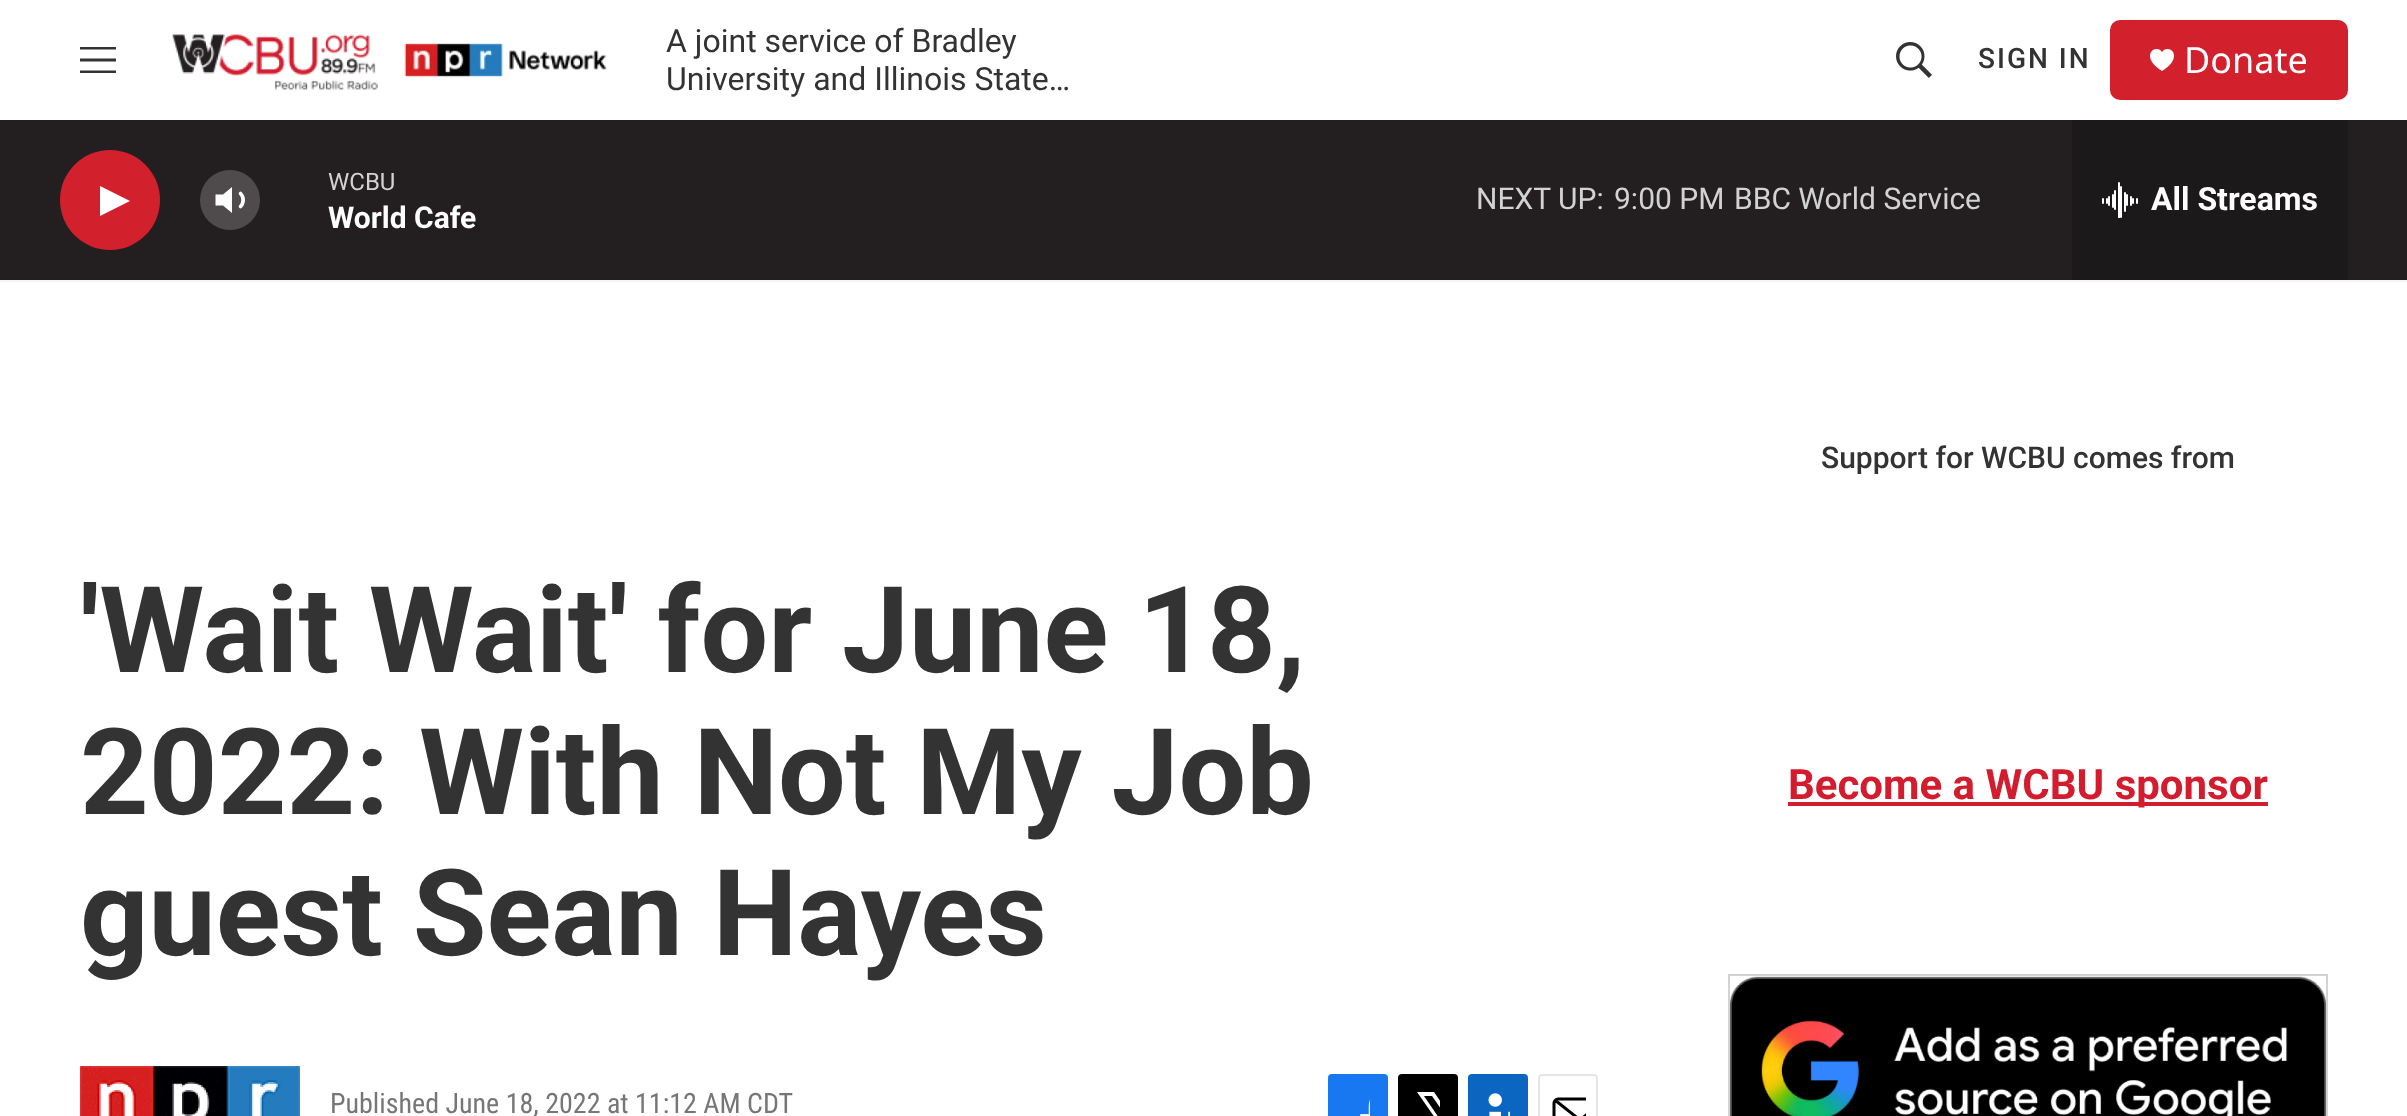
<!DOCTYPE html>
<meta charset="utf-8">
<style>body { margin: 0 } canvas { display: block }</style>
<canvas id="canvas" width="2407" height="1116"></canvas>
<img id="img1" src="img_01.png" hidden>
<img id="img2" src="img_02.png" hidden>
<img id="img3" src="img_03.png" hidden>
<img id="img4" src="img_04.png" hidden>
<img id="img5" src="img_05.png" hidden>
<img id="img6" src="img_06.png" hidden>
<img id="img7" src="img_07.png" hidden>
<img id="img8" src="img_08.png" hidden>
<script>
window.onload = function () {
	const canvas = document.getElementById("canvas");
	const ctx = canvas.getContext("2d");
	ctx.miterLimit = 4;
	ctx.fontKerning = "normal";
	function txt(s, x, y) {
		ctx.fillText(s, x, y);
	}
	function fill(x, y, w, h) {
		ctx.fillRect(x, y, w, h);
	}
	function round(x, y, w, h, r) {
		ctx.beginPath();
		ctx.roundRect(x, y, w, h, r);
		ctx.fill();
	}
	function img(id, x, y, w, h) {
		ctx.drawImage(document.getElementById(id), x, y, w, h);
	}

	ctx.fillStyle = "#FFFFFF";
	fill(0, 0, 2407, 1116);
	ctx.fillStyle = "#F5F5F5";
	fill(0, 280, 2407, 2);
	ctx.fillStyle = "#333333";
	ctx.beginPath();
	ctx.moveTo(80, 61.5);
	ctx.lineTo(80, 58.5);
	ctx.lineTo(116, 58.5);
	ctx.lineTo(116, 61.5);
	ctx.closePath();
	ctx.moveTo(80, 49.5);
	ctx.lineTo(80, 47);
	ctx.lineTo(116, 47);
	ctx.lineTo(116, 49.5);
	ctx.closePath();
	ctx.moveTo(80, 73);
	ctx.lineTo(80, 70.5);
	ctx.lineTo(116, 70.5);
	ctx.lineTo(116, 73);
	ctx.closePath();
	ctx.fill("evenodd");
	img("img1", 172, 34, 435, 56);
	img("img2", 1896, 42, 36, 36);
	ctx.fillStyle = "#D2202C";
	round(2110, 20, 238, 80, 10);
	img("img3", 2150, 49, 24, 22);
	ctx.fillStyle = "#231F20";
	fill(0, 120, 2407, 160);
	ctx.fillStyle = "#D2202D";
	ctx.beginPath();
	ctx.arc(110, 200, 50, 0, Math.PI * 2);
	ctx.fill();
	ctx.fillStyle = "#FFFFFF";
	ctx.beginPath();
	ctx.moveTo(100, 186);
	ctx.lineTo(130, 201);
	ctx.lineTo(100, 216);
	ctx.closePath();
	ctx.fill();
	ctx.beginPath();
	ctx.moveTo(232, 187);
	ctx.lineTo(223, 194.5);
	ctx.lineTo(215.5, 194.5);
	ctx.lineTo(215.5, 205.5);
	ctx.lineTo(223, 205.5);
	ctx.lineTo(232, 213);
	ctx.closePath();
	ctx.fill();
	ctx.beginPath();
	ctx.moveTo(240.5, 193.5);
	ctx.bezierCurveTo(244, 197, 244, 203, 240.5, 206.5);
	ctx.strokeStyle = "#FFFFFF";
	ctx.lineWidth = 3.7;
	ctx.lineCap = "round";
	ctx.lineJoin = "round";
	ctx.stroke();
	ctx.fillStyle = "rgba(255, 255, 255, 0.2)";
	ctx.beginPath();
	ctx.arc(230, 200, 30, 0, Math.PI * 2);
	ctx.fill();
	ctx.fillStyle = "#1C191A";
	fill(2072, 120, 276, 160);
	img("img4", 2102, 182, 36, 36);
	img("img5", 80, 1066, 220, 50);
	ctx.fillStyle = "#1778F2";
	round(1328, 1074, 60, 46, 4);
	img("img6", 1360, 1100, 10, 16);
	ctx.fillStyle = "#000000";
	round(1398, 1074, 60, 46, 4);
	ctx.save();
	ctx.beginPath();
	ctx.rect(1416, 1092, 24, 24);
	ctx.clip();
	ctx.fillStyle = "#FFFFFF";
	ctx.beginPath();
	ctx.moveTo(1452, 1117);
	ctx.lineTo(1458, 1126);
	ctx.bezierCurveTo(1458, 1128, 1459, 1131, 1457, 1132);
	ctx.lineTo(1432, 1096);
	ctx.lineTo(1424, 1096);
	ctx.lineTo(1450, 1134);
	ctx.lineTo(1445, 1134);
	ctx.lineTo(1442, 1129);
	ctx.lineTo(1438, 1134);
	ctx.lineTo(1432, 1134);
	ctx.lineTo(1440, 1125);
	ctx.lineTo(1417, 1092);
	ctx.lineTo(1434, 1092);
	ctx.lineTo(1449, 1114);
	ctx.lineTo(1458, 1104);
	ctx.lineTo(1458, 1110);
	ctx.closePath();
	ctx.fill();
	ctx.restore();
	ctx.fillStyle = "#0A66C1";
	round(1468, 1074, 60, 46, 4);
	img("img7", 1488, 1093, 22, 23);
	ctx.beginPath();
	ctx.roundRect(1539, 1075, 58, 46, 3);
	ctx.strokeStyle = "#E6E6E6";
	ctx.lineWidth = 2;
	ctx.lineJoin = "miter";
	ctx.stroke();
	ctx.save();
	ctx.beginPath();
	ctx.rect(1550, 1086, 36, 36);
	ctx.clip();
	ctx.beginPath();
	ctx.moveTo(1606, 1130);
	ctx.bezierCurveTo(1606, 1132, 1604, 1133.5, 1602, 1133.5);
	ctx.lineTo(1558, 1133.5);
	ctx.bezierCurveTo(1556, 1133.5, 1554, 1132, 1554, 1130);
	ctx.lineTo(1554, 1103);
	ctx.bezierCurveTo(1554, 1101, 1556, 1099, 1558, 1099);
	ctx.lineTo(1602, 1099);
	ctx.bezierCurveTo(1604, 1099, 1606, 1101, 1606, 1103);
	ctx.closePath();
	ctx.moveTo(1604.5, 1100.5);
	ctx.lineTo(1580, 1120);
	ctx.lineTo(1555.5, 1100.5);
	ctx.strokeStyle = "#000000";
	ctx.lineWidth = 3;
	ctx.lineJoin = "round";
	ctx.stroke();
	ctx.restore();
	ctx.fillStyle = "#D31D2E";
	fill(1788, 802, 480, 4);
	ctx.strokeStyle = "#D3D3D3";
	ctx.strokeRect(1729, 975, 598, 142);
	img("img8", 1730, 976, 596, 140);
	ctx.font = "32px Roboto";
	ctx.fillStyle = "#333333";
	txt("A joint service of Bradley", 666, 52);
	txt("University and Illinois State…", 666, 90);
	ctx.letterSpacing = "2px";
	ctx.font = "500 28px Roboto";
	txt("SIGN IN", 1978, 68);
	ctx.letterSpacing = "0px";
	ctx.font = "36px Noto Sans";
	ctx.fillStyle = "#FFFFFF";
	txt("Donate", 2184, 73);
	ctx.font = "24px Roboto";
	ctx.fillStyle = "#D3D2D2";
	txt("WCBU", 328, 190);
	ctx.font = "bold 30px 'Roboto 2'";
	ctx.fillStyle = "#FFFFFF";
	txt("World Cafe", 328, 228);
	ctx.font = "30px Roboto";
	ctx.fillStyle = "#D3D2D2";
	txt("NEXT UP:", 1476, 209);
	txt("9:00 PM", 1614, 209);
	txt("BBC World Service", 1734, 209);
	ctx.font = "bold 32px 'Roboto 2'";
	ctx.fillStyle = "#FFFFFF";
	txt("All Streams", 2151, 210);
	ctx.font = "bold 120px Roboto";
	ctx.fillStyle = "#333333";
	txt("'Wait Wait' for June 18,", 80, 672);
	txt("2022: With Not My Job", 80, 814);
	txt("guest Sean Hayes", 80, 955);
	ctx.font = "28px Roboto Condensed";
	ctx.fillStyle = "#767676";
	txt("Published June 18, 2022 at 11:12 AM CDT", 330, 1113);
	ctx.font = "500 30px Roboto";
	ctx.fillStyle = "#333333";
	txt("Support for WCBU comes from", 1821, 468);
	ctx.font = "bold 42px 'Roboto 2'";
	ctx.fillStyle = "#D31D2E";
	txt("Become a WCBU sponsor", 1788, 799);
};
</script>
